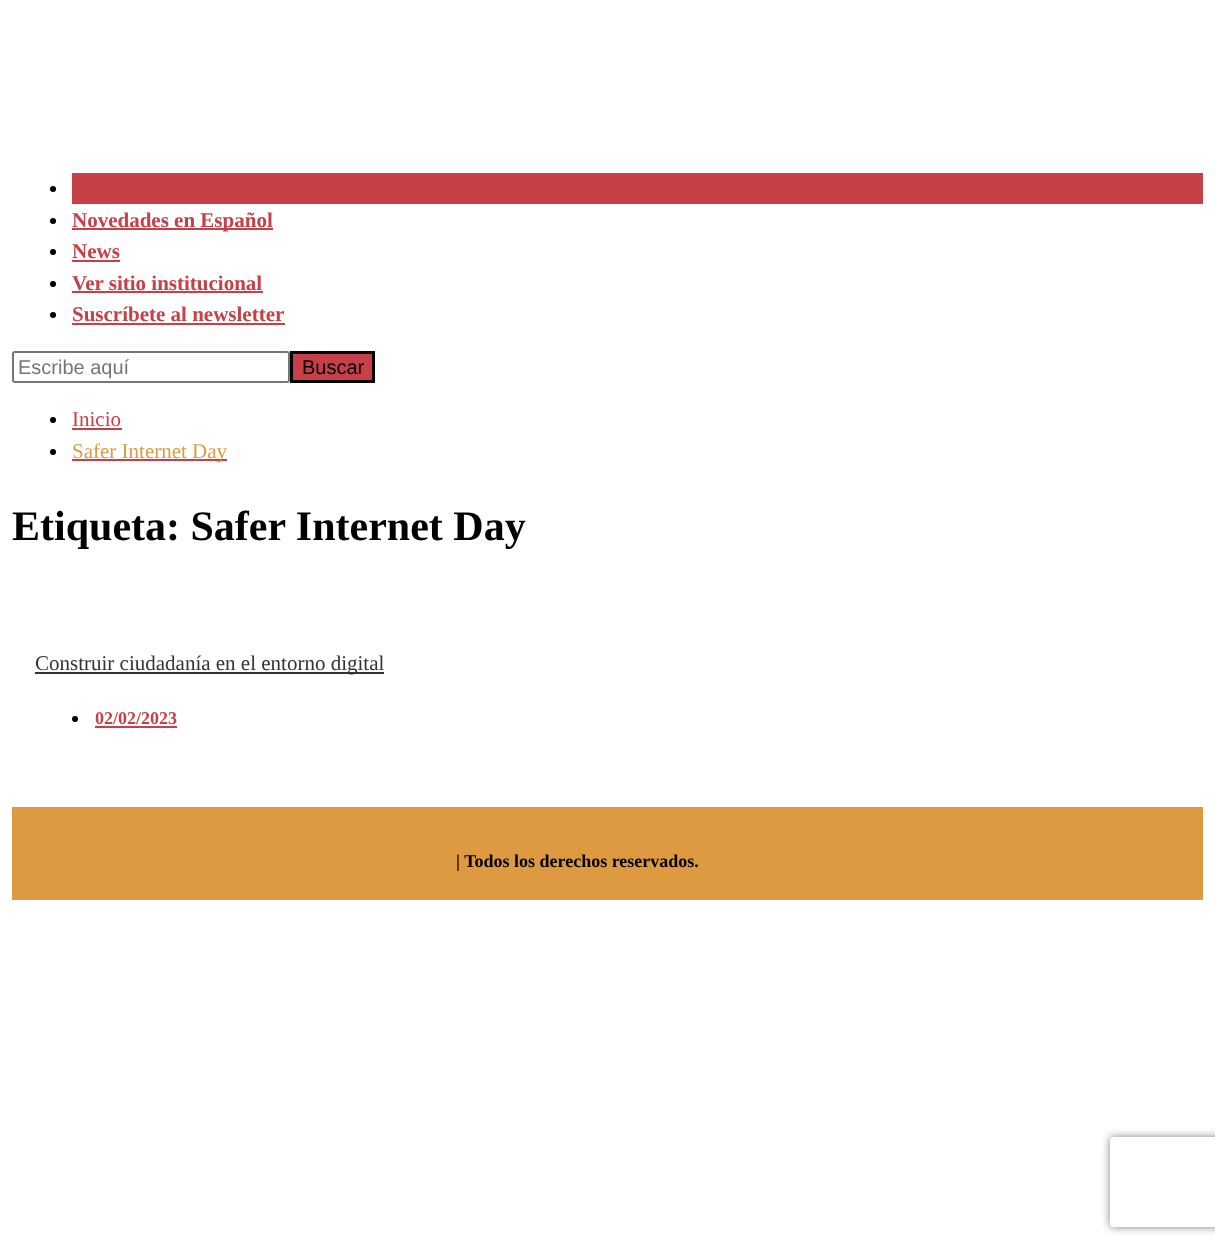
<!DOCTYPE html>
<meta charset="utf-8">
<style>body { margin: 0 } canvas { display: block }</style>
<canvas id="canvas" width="1215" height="1248"></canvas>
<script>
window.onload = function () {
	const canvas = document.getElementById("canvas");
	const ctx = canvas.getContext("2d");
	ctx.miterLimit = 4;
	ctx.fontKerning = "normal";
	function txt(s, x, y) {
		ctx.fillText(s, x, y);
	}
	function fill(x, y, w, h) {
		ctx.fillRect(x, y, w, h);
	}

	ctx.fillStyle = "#FFFFFF";
	fill(0, 0, 1215, 1248);
	ctx.fillStyle = "#C73F47";
	fill(72, 173, 1131, 31);
	ctx.fillStyle = "#000000";
	ctx.beginPath();
	ctx.arc(53, 189, 3, 0, Math.PI * 2);
	ctx.fill();
	ctx.beginPath();
	ctx.arc(53, 221, 3, 0, Math.PI * 2);
	ctx.fill();
	ctx.fillStyle = "#C74048";
	fill(72, 228, 201, 2);
	ctx.fillStyle = "#000000";
	ctx.beginPath();
	ctx.arc(53, 252, 3, 0, Math.PI * 2);
	ctx.fill();
	ctx.fillStyle = "#C74048";
	fill(72, 260, 48, 2);
	ctx.fillStyle = "#000000";
	ctx.beginPath();
	ctx.arc(53, 284, 3, 0, Math.PI * 2);
	ctx.fill();
	ctx.fillStyle = "#C74048";
	fill(72, 291, 191, 2);
	ctx.fillStyle = "#000000";
	ctx.beginPath();
	ctx.arc(53, 315, 3, 0, Math.PI * 2);
	ctx.fill();
	ctx.fillStyle = "#C74048";
	fill(72, 323, 213, 2);
	ctx.beginPath();
	ctx.roundRect(13, 352, 276, 30, 2);
	ctx.strokeStyle = "#767676";
	ctx.lineWidth = 2;
	ctx.stroke();
	ctx.fillStyle = "#C73F47";
	ctx.beginPath();
	ctx.rect(291.5, 352.5, 82, 29);
	ctx.fill();
	ctx.strokeStyle = "#000000";
	ctx.lineWidth = 3;
	ctx.stroke();
	ctx.fillStyle = "#000000";
	ctx.beginPath();
	ctx.arc(53, 420, 3, 0, Math.PI * 2);
	ctx.fill();
	ctx.fillStyle = "#C74048";
	fill(72, 428, 50, 2);
	ctx.fillStyle = "#000000";
	ctx.beginPath();
	ctx.arc(53, 452, 3, 0, Math.PI * 2);
	ctx.fill();
	ctx.fillStyle = "#C74048";
	fill(72, 459, 155, 2);
	ctx.fillStyle = "#333333";
	fill(35, 672, 349, 2);
	ctx.fillStyle = "#000000";
	ctx.beginPath();
	ctx.arc(75, 719, 3, 0, Math.PI * 2);
	ctx.fill();
	ctx.fillStyle = "#C74048";
	fill(95, 726, 82, 2);
	ctx.fillStyle = "#DE9A41";
	fill(12, 807, 1191, 93);
	ctx.save();
	ctx.beginPath();
	ctx.moveTo(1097, 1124);
	ctx.lineTo(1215, 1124);
	ctx.lineTo(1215, 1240);
	ctx.lineTo(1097, 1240);
	ctx.closePath();
	ctx.moveTo(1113, 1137);
	ctx.lineTo(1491, 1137);
	ctx.bezierCurveTo(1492.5, 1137, 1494, 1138.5, 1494, 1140);
	ctx.lineTo(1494, 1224);
	ctx.bezierCurveTo(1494, 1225.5, 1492.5, 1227, 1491, 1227);
	ctx.lineTo(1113, 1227);
	ctx.bezierCurveTo(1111.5, 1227, 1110, 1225.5, 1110, 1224);
	ctx.lineTo(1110, 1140);
	ctx.bezierCurveTo(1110, 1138.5, 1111.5, 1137, 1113, 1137);
	ctx.closePath();
	ctx.clip("evenodd");
	ctx.fillStyle = "#808080";
	ctx.filter = "blur(4px)";
	ctx.beginPath();
	ctx.roundRect(1110, 1137, 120, 90, 3);
	ctx.fill();
	ctx.filter = "none";
	ctx.restore();
	ctx.font = "bold 21px Liberation Serif";
	ctx.fillStyle = "#C74048";
	txt("Novedades en Español", 72, 227);
	txt("News", 72, 258);
	txt("Ver sitio institucional", 72, 290);
	txt("Suscríbete al newsletter", 72, 321);
	ctx.font = "20px Liberation Sans";
	ctx.fillStyle = "#757575";
	txt("Escribe aquí", 18, 374);
	ctx.fillStyle = "#000000";
	txt("Buscar", 302, 374);
	ctx.font = "21px Liberation Serif";
	ctx.fillStyle = "#C74048";
	txt("Inicio", 72, 426);
	ctx.fillStyle = "#DE9A41";
	txt("Safer Internet Day", 72, 458);
	ctx.font = "bold 42px Liberation Serif";
	ctx.fillStyle = "#000000";
	txt("Etiqueta: Safer Internet Day", 12, 540);
	ctx.font = "21px Liberation Serif";
	ctx.fillStyle = "#333333";
	txt("Construir ciudadanía en el entorno digital", 35, 670);
	ctx.font = "bold 18px Liberation Serif";
	ctx.fillStyle = "#C74048";
	txt("02/02/2023", 95, 724);
	ctx.fillStyle = "#000000";
	txt("| Todos los derechos reservados.", 456, 867);
};
</script>
